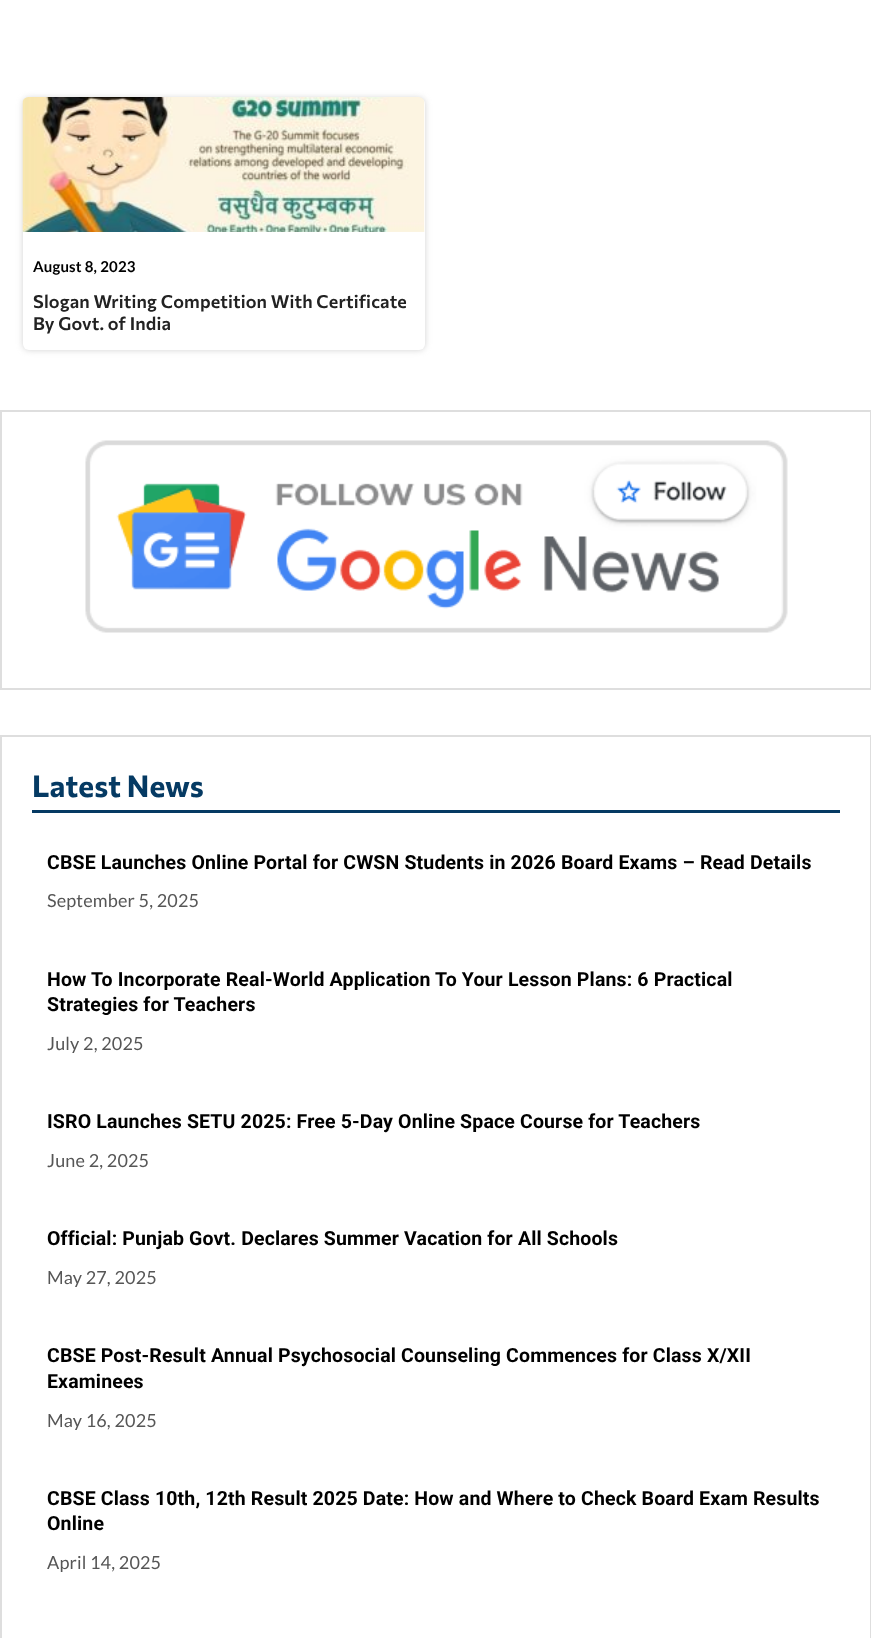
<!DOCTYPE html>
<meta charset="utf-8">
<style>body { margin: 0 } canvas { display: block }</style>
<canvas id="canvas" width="871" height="1638"></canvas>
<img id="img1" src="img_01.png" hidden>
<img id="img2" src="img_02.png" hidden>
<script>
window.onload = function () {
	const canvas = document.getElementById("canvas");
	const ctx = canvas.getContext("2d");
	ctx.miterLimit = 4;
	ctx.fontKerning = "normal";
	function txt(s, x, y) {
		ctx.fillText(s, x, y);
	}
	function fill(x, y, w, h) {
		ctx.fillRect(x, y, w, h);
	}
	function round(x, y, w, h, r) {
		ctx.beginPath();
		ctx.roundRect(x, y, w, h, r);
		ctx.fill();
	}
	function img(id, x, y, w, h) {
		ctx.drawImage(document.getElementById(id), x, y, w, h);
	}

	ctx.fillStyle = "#FFFFFF";
	fill(0, 0, 871, 1638);
	ctx.fillStyle = "rgba(164, 164, 164, 0.5)";
	ctx.filter = "blur(3px)";
	ctx.beginPath();
	ctx.roundRect(23, 98, 402, 252, 6);
	ctx.fill();
	ctx.filter = "none";
	ctx.fillStyle = "#FFFFFF";
	round(23, 98, 402, 252, 6);
	img("img1", 22, 97, 403, 135);
	ctx.strokeStyle = "#DEDEDE";
	ctx.lineWidth = 2;
	ctx.strokeRect(1, 411, 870, 278);
	img("img2", 85, 440, 703, 193);
	ctx.strokeRect(1, 736, 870, 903);
	ctx.fillStyle = "#053A63";
	fill(32, 810, 808, 3);
	ctx.letterSpacing = "0.15px";
	ctx.font = "bold 15px Lato";
	ctx.fillStyle = "#000000";
	txt("August 8, 2023", 33, 272);
	ctx.font = "600 18px Commissioner";
	ctx.fillStyle = "#222222";
	txt("Slogan Writing Competition With Certificate", 33, 308);
	txt("By Govt. of India", 33, 330);
	ctx.font = "bold 30px Commissioner";
	ctx.fillStyle = "#053A63";
	txt("Latest News", 32, 797);
	ctx.font = "bold 19.5px Roboto";
	ctx.fillStyle = "#000000";
	txt("CBSE Launches Online Portal for CWSN Students in 2026 Board Exams – Read Details", 47, 869);
	ctx.font = "18px Lato";
	ctx.fillStyle = "#565656";
	txt("September 5, 2025", 47, 907);
	ctx.font = "bold 19.5px Roboto";
	ctx.fillStyle = "#000000";
	txt("How To Incorporate Real-World Application To Your Lesson Plans: 6 Practical", 47, 986);
	txt("Strategies for Teachers", 47, 1011);
	ctx.font = "18px Lato";
	ctx.fillStyle = "#565656";
	txt("July 2, 2025", 47, 1050);
	ctx.font = "bold 19.5px Roboto";
	ctx.fillStyle = "#000000";
	txt("ISRO Launches SETU 2025: Free 5-Day Online Space Course for Teachers", 47, 1128);
	ctx.font = "18px Lato";
	ctx.fillStyle = "#565656";
	txt("June 2, 2025", 47, 1167);
	ctx.font = "bold 19.5px Roboto";
	ctx.fillStyle = "#000000";
	txt("Official: Punjab Govt. Declares Summer Vacation for All Schools", 47, 1245);
	ctx.font = "18px Lato";
	ctx.fillStyle = "#565656";
	txt("May 27, 2025", 47, 1284);
	ctx.font = "bold 19.5px Roboto";
	ctx.fillStyle = "#000000";
	txt("CBSE Post-Result Annual Psychosocial Counseling Commences for Class X/XII", 47, 1362);
	txt("Examinees", 47, 1388);
	ctx.font = "18px Lato";
	ctx.fillStyle = "#565656";
	txt("May 16, 2025", 47, 1427);
	ctx.font = "bold 19.5px Roboto";
	ctx.fillStyle = "#000000";
	txt("CBSE Class 10th, 12th Result 2025 Date: How and Where to Check Board Exam Results", 47, 1505);
	txt("Online", 47, 1530);
	ctx.font = "18px Lato";
	ctx.fillStyle = "#565656";
	txt("April 14, 2025", 47, 1569);
};
</script>
